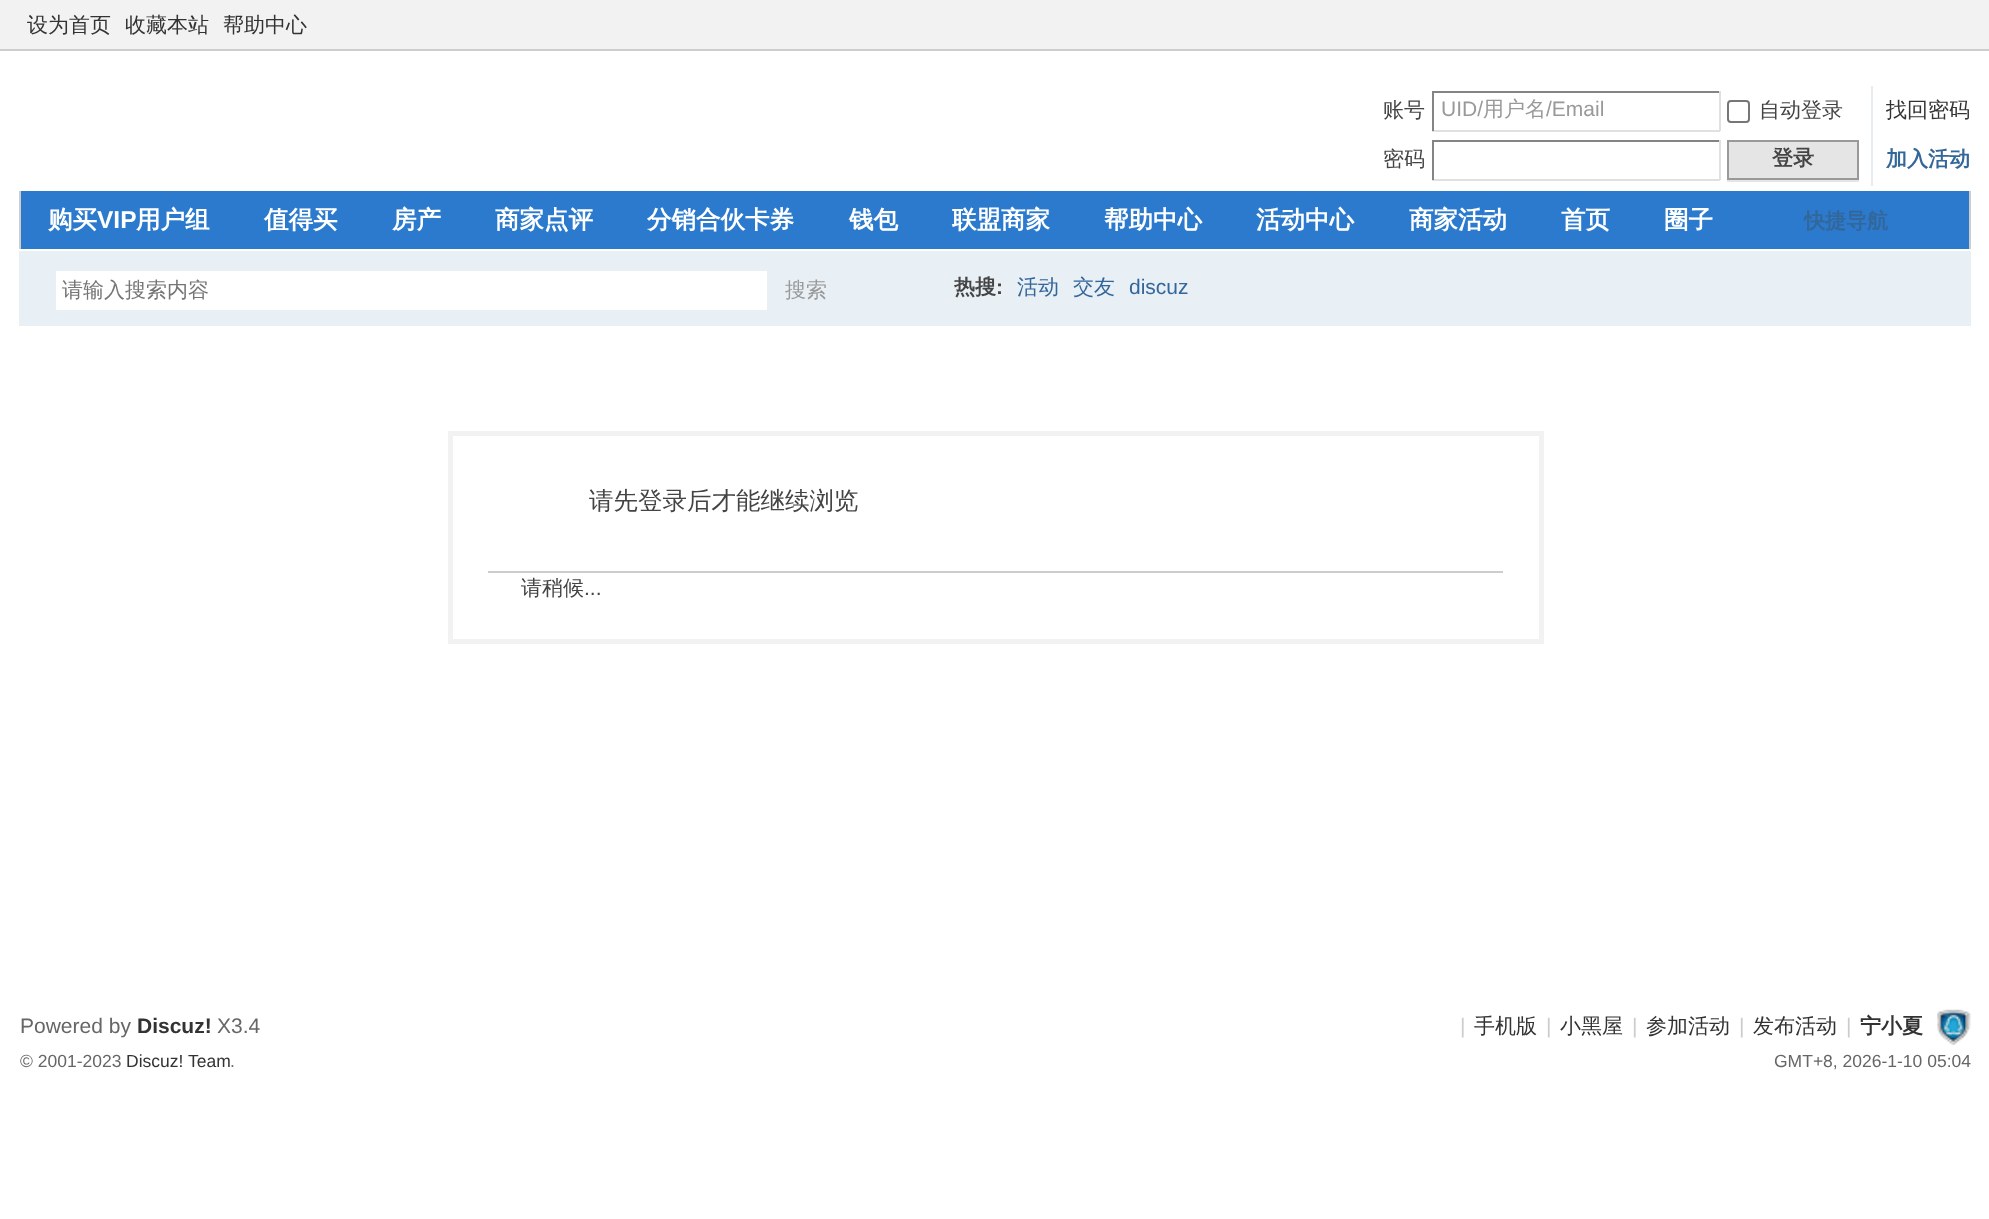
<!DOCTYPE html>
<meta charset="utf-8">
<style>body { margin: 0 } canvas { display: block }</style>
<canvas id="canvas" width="1989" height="1219"></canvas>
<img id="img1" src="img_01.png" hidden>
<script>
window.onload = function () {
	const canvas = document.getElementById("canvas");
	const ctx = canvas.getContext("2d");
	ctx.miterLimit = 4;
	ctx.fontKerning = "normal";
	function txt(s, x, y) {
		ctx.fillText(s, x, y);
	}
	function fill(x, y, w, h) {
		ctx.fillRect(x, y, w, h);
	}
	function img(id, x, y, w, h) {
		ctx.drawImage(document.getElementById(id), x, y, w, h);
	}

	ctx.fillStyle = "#FFFFFF";
	fill(0, 0, 1989, 1219);
	ctx.fillStyle = "#F2F2F2";
	fill(0, 0, 1989, 49);
	ctx.fillStyle = "#CDCDCD";
	fill(0, 49, 1989, 2);
	ctx.fillStyle = "#848484";
	fill(1432, 91, 288, 2);
	ctx.fillStyle = "#E0E0E0";
	fill(1719, 91, 2, 40);
	fill(1432, 130, 288, 2);
	ctx.fillStyle = "#848484";
	fill(1432, 91, 2, 40);
	ctx.beginPath();
	ctx.roundRect(1728, 101, 21, 21, 3);
	ctx.strokeStyle = "#767676";
	ctx.lineWidth = 2;
	ctx.stroke();
	fill(1432, 140, 288, 2);
	ctx.fillStyle = "#E0E0E0";
	fill(1719, 140, 2, 40);
	fill(1432, 179, 288, 2);
	ctx.fillStyle = "#848484";
	fill(1432, 140, 2, 40);
	ctx.fillStyle = "#E5EDF2";
	fill(1871, 86, 2, 100);
	ctx.fillStyle = "#E5E5E5";
	ctx.beginPath();
	ctx.moveTo(1727, 142);
	ctx.lineTo(1727, 182);
	ctx.lineTo(1859, 182);
	ctx.lineTo(1859, 142);
	ctx.lineTo(1858, 142);
	ctx.lineTo(1858, 180);
	ctx.lineTo(1727, 180);
	ctx.closePath();
	ctx.fill();
	ctx.beginPath();
	ctx.rect(1728, 141, 130, 38);
	ctx.fill();
	ctx.strokeStyle = "#999999";
	ctx.stroke();
	ctx.fillStyle = "#2B7ACD";
	fill(21, 191, 1948, 58);
	ctx.fillStyle = "#CDCDCD";
	fill(1969, 191, 2, 58);
	fill(19, 191, 2, 58);
	ctx.fillStyle = "#E8EFF5";
	fill(19, 251, 1952, 75);
	ctx.fillStyle = "#FFFFFF";
	fill(56, 271, 711, 39);
	ctx.strokeStyle = "#F2F2F2";
	ctx.lineWidth = 5;
	ctx.strokeRect(450.5, 433.5, 1091, 208);
	ctx.fillStyle = "#CDCDCD";
	fill(488, 571, 1015, 2);
	img("img1", 1937, 1009, 34, 36);
	ctx.font = "500 21px WenQuanYi Zen Hei";
	ctx.fillStyle = "#333333";
	txt("设为首页", 27, 32);
	txt("收藏本站", 125, 32);
	txt("帮助中心", 223, 32);
	ctx.fillStyle = "#444444";
	txt("账号", 1383, 117);
	ctx.font = "21px Liberation Sans";
	ctx.fillStyle = "#999999";
	txt("UID/", 1441, 116);
	ctx.font = "500 21px WenQuanYi Zen Hei";
	txt("用户名", 1483, 116);
	ctx.font = "21px Liberation Sans";
	txt("/Email", 1546, 116);
	ctx.font = "500 21px WenQuanYi Zen Hei";
	ctx.fillStyle = "#444444";
	txt("自动登录", 1759, 117);
	ctx.fillStyle = "#333333";
	txt("找回密码", 1886, 117);
	ctx.fillStyle = "#444444";
	txt("密码", 1383, 166);
	ctx.font = "bold 21px WenQuanYi Zen Hei";
	txt("登录", 1772, 165);
	ctx.fillStyle = "#336699";
	txt("加入活动", 1886, 166);
	ctx.font = "bold 24.5px WenQuanYi Zen Hei";
	ctx.fillStyle = "#FFFFFF";
	txt("购买", 48, 228);
	ctx.font = "bold 24.5px Liberation Sans";
	txt("VIP", 97, 228);
	ctx.font = "bold 24.5px WenQuanYi Zen Hei";
	txt("用户组", 136, 228);
	txt("值得买", 264, 228);
	txt("房产", 392, 228);
	txt("商家点评", 495, 228);
	txt("分销合伙卡券", 647, 228);
	txt("钱包", 849, 228);
	txt("联盟商家", 952, 228);
	txt("帮助中心", 1104, 228);
	txt("活动中心", 1256, 228);
	txt("商家活动", 1409, 228);
	txt("首页", 1561, 228);
	txt("圈子", 1664, 228);
	ctx.font = "bold 21px WenQuanYi Zen Hei";
	ctx.fillStyle = "#336699";
	txt("快捷导航", 1804, 228);
	ctx.font = "500 21px WenQuanYi Zen Hei";
	ctx.fillStyle = "#757575";
	txt("请输入搜索内容", 62, 297);
	ctx.fillStyle = "#999999";
	txt("搜索", 785, 297);
	ctx.font = "bold 21px WenQuanYi Zen Hei";
	ctx.fillStyle = "#444444";
	txt("热搜", 954, 294);
	ctx.font = "bold 21px Liberation Sans";
	txt(":", 996, 294);
	ctx.font = "500 21px WenQuanYi Zen Hei";
	ctx.fillStyle = "#336699";
	txt("活动", 1017, 294);
	txt("交友", 1073, 294);
	ctx.font = "21px Liberation Sans";
	txt("discuz", 1129, 294);
	ctx.font = "500 24.5px WenQuanYi Zen Hei";
	ctx.fillStyle = "#444444";
	txt("请先登录后才能继续浏览", 589, 509);
	ctx.font = "500 21px WenQuanYi Zen Hei";
	txt("请稍候", 521, 595);
	ctx.font = "21px Liberation Sans";
	txt("...", 584, 595);
	ctx.fillStyle = "#666666";
	txt("Powered by", 20, 1033);
	ctx.font = "bold 21px Liberation Sans";
	ctx.fillStyle = "#333333";
	txt("Discuz!", 137, 1033);
	ctx.font = "21px Liberation Sans";
	ctx.fillStyle = "#666666";
	txt("X3.4", 217, 1033);
	ctx.font = "17.5px Liberation Sans";
	txt("© 2001-2023", 20, 1067);
	ctx.fillStyle = "#333333";
	txt("Discuz! Team", 126, 1067);
	ctx.fillStyle = "#666666";
	txt(".", 230, 1067);
	ctx.font = "21px Liberation Sans";
	ctx.fillStyle = "#CCCCCC";
	txt("|", 1460, 1033);
	ctx.font = "500 21px WenQuanYi Zen Hei";
	ctx.fillStyle = "#333333";
	txt("手机版", 1474, 1033);
	ctx.font = "21px Liberation Sans";
	ctx.fillStyle = "#CCCCCC";
	txt("|", 1546, 1033);
	ctx.font = "500 21px WenQuanYi Zen Hei";
	ctx.fillStyle = "#333333";
	txt("小黑屋", 1560, 1033);
	ctx.font = "21px Liberation Sans";
	ctx.fillStyle = "#CCCCCC";
	txt("|", 1632, 1033);
	ctx.font = "500 21px WenQuanYi Zen Hei";
	ctx.fillStyle = "#333333";
	txt("参加活动", 1646, 1033);
	ctx.font = "21px Liberation Sans";
	ctx.fillStyle = "#CCCCCC";
	txt("|", 1739, 1033);
	ctx.font = "500 21px WenQuanYi Zen Hei";
	ctx.fillStyle = "#333333";
	txt("发布活动", 1753, 1033);
	ctx.font = "21px Liberation Sans";
	ctx.fillStyle = "#CCCCCC";
	txt("|", 1846, 1033);
	ctx.font = "bold 21px WenQuanYi Zen Hei";
	ctx.fillStyle = "#333333";
	txt("宁小夏", 1860, 1033);
	ctx.font = "17.5px Liberation Sans";
	ctx.fillStyle = "#666666";
	txt("GMT+8, 2026-1-10 05:04", 1774, 1067);
};
</script>
